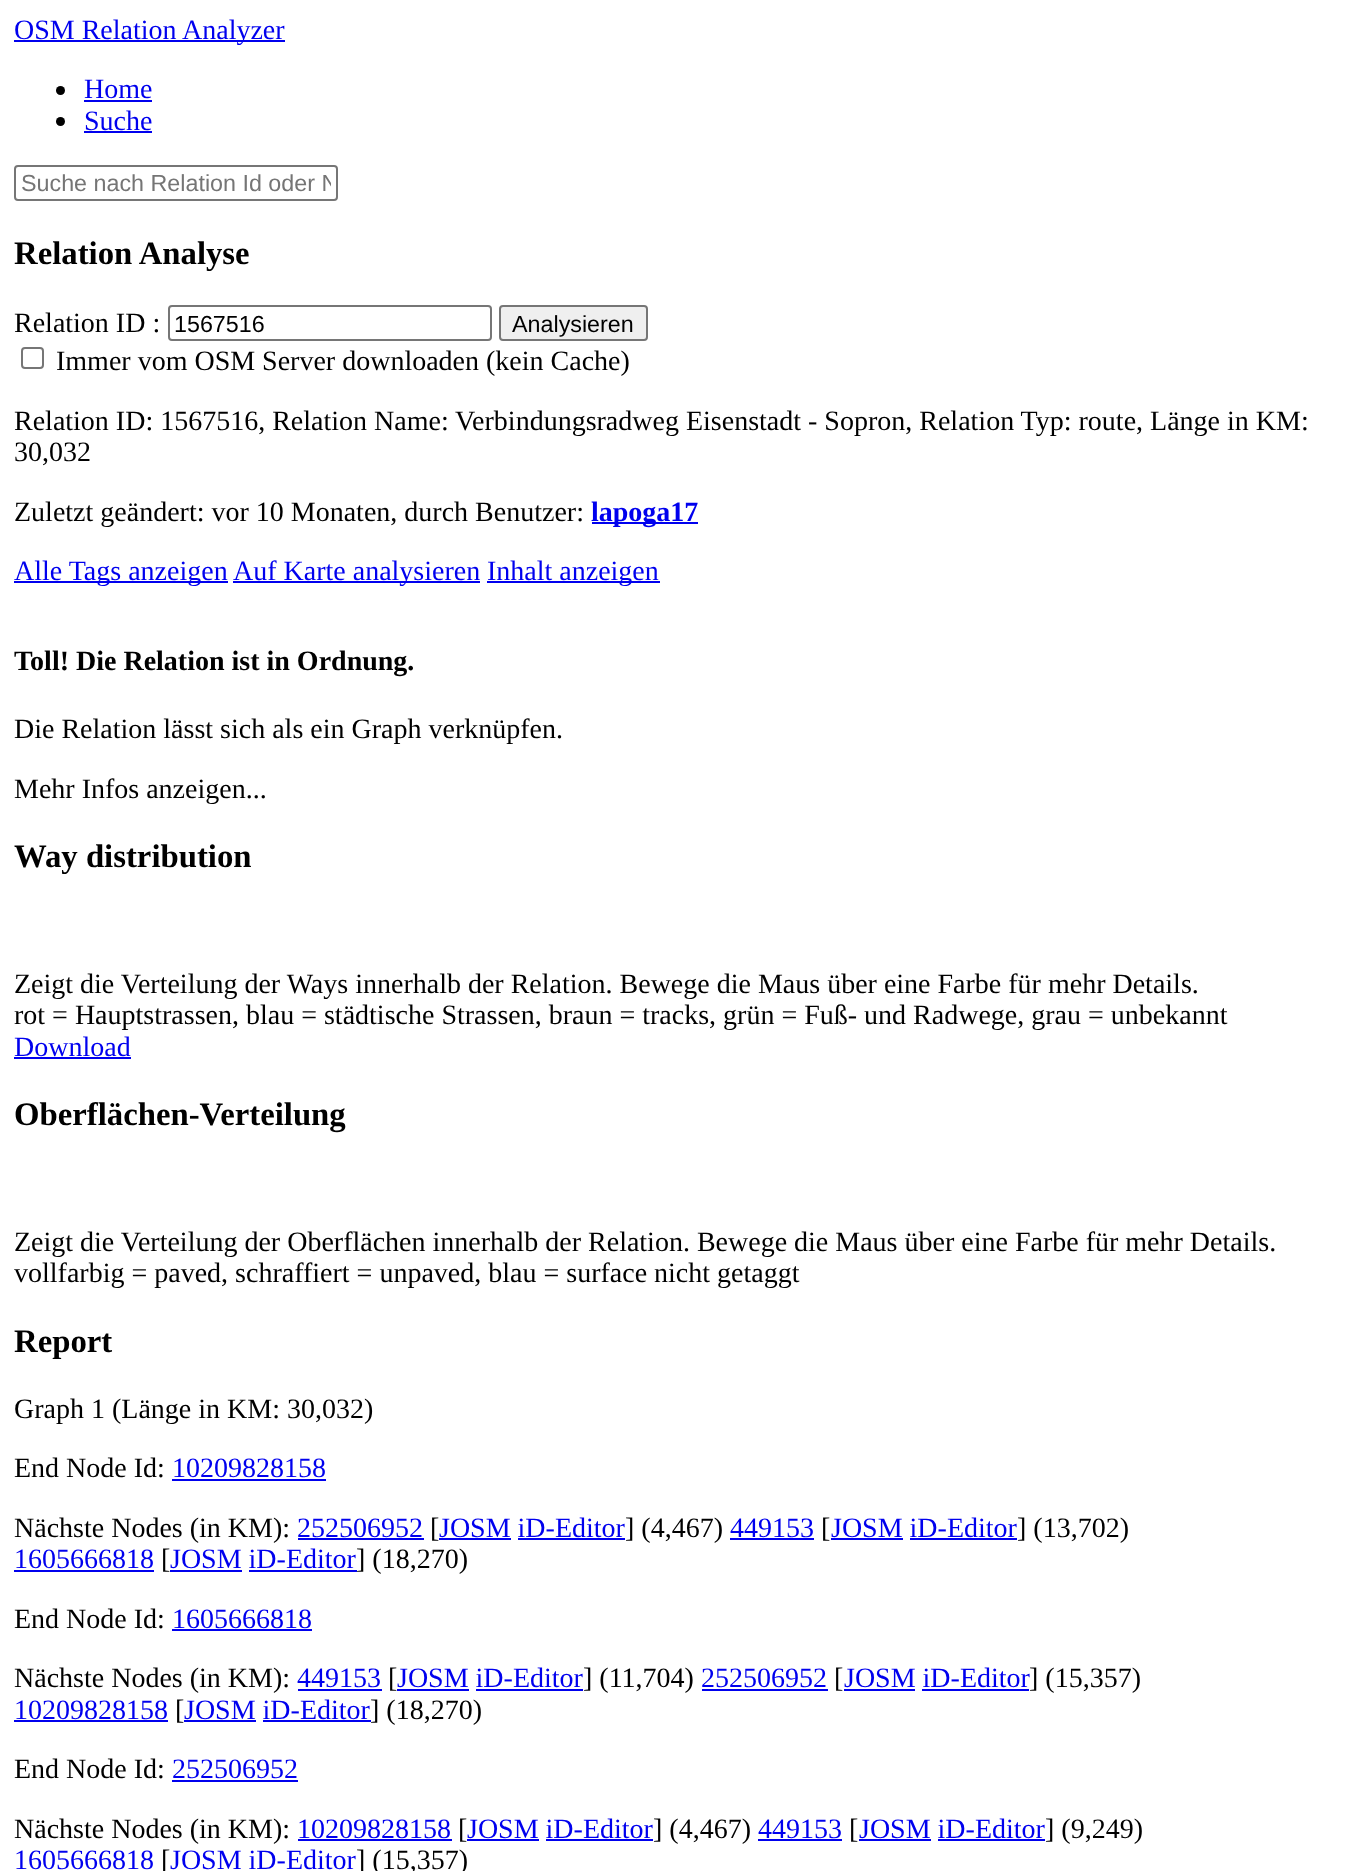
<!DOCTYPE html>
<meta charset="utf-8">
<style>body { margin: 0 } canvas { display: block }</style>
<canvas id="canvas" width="1356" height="1871"></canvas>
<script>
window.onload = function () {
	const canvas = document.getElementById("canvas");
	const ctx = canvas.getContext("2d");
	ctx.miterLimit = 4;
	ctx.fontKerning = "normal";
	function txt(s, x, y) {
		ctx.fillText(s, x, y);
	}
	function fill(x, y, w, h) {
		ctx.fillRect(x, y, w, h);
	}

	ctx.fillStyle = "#FFFFFF";
	fill(0, 0, 1356, 1871);
	ctx.fillStyle = "#0000EE";
	fill(14, 40, 271, 2);
	ctx.fillStyle = "#000000";
	ctx.beginPath();
	ctx.arc(60.5, 90.5, 4.5, 0, Math.PI * 2);
	ctx.fill();
	ctx.fillStyle = "#0000EE";
	fill(84, 100, 68, 2);
	ctx.fillStyle = "#000000";
	ctx.beginPath();
	ctx.arc(60.5, 121.5, 4.5, 0, Math.PI * 2);
	ctx.fill();
	ctx.fillStyle = "#0000EE";
	fill(84, 131, 68, 2);
	ctx.beginPath();
	ctx.roundRect(15, 166, 322, 34, 3);
	ctx.strokeStyle = "#767676";
	ctx.lineWidth = 2;
	ctx.stroke();
	ctx.beginPath();
	ctx.roundRect(169, 306, 322, 34, 3);
	ctx.stroke();
	ctx.fillStyle = "#EFEFEF";
	ctx.beginPath();
	ctx.roundRect(500, 306, 147, 34, 3);
	ctx.fill();
	ctx.stroke();
	ctx.beginPath();
	ctx.roundRect(22, 348, 21, 20, 3);
	ctx.stroke();
	ctx.fillStyle = "#0000EE";
	fill(592, 522, 106, 2);
	fill(14, 581, 214, 2);
	fill(233, 581, 247, 2);
	fill(487, 581, 173, 2);
	fill(14, 1057, 117, 2);
	fill(172, 1479, 154, 2);
	fill(298, 1538, 126, 2);
	fill(439, 1538, 72, 2);
	fill(730, 1538, 84, 2);
	fill(831, 1538, 72, 2);
	fill(518, 1538, 107, 2);
	fill(910, 1538, 107, 2);
	fill(14, 1570, 140, 2);
	fill(170, 1570, 72, 2);
	fill(249, 1570, 108, 2);
	fill(172, 1629, 140, 2);
	fill(298, 1689, 84, 2);
	fill(397, 1689, 72, 2);
	fill(702, 1689, 126, 2);
	fill(844, 1689, 71, 2);
	fill(476, 1689, 107, 2);
	fill(922, 1689, 107, 2);
	fill(14, 1720, 154, 2);
	fill(184, 1720, 72, 2);
	fill(263, 1720, 108, 2);
	fill(172, 1780, 126, 2);
	fill(298, 1839, 154, 2);
	fill(467, 1839, 72, 2);
	fill(758, 1839, 84, 2);
	fill(859, 1839, 72, 2);
	fill(546, 1839, 107, 2);
	fill(938, 1839, 107, 2);
	ctx.font = "28px Liberation Serif";
	txt("OSM Relation Analyzer", 14, 39);
	txt("Home", 84, 98);
	txt("Suche", 84, 130);
	ctx.save();
	ctx.beginPath();
	ctx.rect(21, 170, 310, 26);
	ctx.clip();
	ctx.font = "23.3px Liberation Sans";
	ctx.fillStyle = "#757575";
	txt("Suche nach Relation Id oder N", 21, 191);
	ctx.restore();
	ctx.font = "bold 32.75px Liberation Serif";
	ctx.fillStyle = "#000000";
	txt("Relation Analyse", 14, 264);
	ctx.font = "28px Liberation Serif";
	txt("Relation ID :", 14, 332);
	ctx.font = "23.3px Liberation Sans";
	txt("1567516", 174, 332);
	txt("Analysieren", 512, 332);
	ctx.font = "28px Liberation Serif";
	txt("Immer vom OSM Server downloaden (kein Cache)", 56, 370);
	txt("Relation ID: 1567516, Relation Name:", 14, 430);
	txt("Verbindungsradweg Eisenstadt - Sopron, Relation Typ: route, Länge in KM:", 455, 430);
	txt("30,032", 14, 461);
	txt("Zuletzt geändert: vor 10 Monaten, durch Benutzer:", 14, 521);
	ctx.font = "bold 28px Liberation Serif";
	ctx.fillStyle = "#0000EE";
	txt("lapoga17", 591, 521);
	ctx.font = "28px Liberation Serif";
	txt("Alle Tags anzeigen", 14, 580);
	txt("Auf Karte analysieren", 233, 580);
	txt("Inhalt anzeigen", 487, 580);
	ctx.font = "bold 28px Liberation Serif";
	ctx.fillStyle = "#000000";
	txt("Toll! Die Relation ist in Ordnung.", 14, 670);
	ctx.font = "28px Liberation Serif";
	txt("Die Relation lässt sich als ein Graph verknüpfen.", 14, 738);
	txt("Mehr Infos anzeigen...", 14, 798);
	ctx.font = "bold 32.75px Liberation Serif";
	txt("Way distribution", 14, 867);
	ctx.font = "28px Liberation Serif";
	txt("Zeigt die Verteilung der Ways innerhalb der Relation. Bewege die Maus über eine Farbe für mehr Details.", 14, 993);
	txt("rot = Hauptstrassen, blau = städtische Strassen, braun = tracks, grün = Fuß- und Radwege, grau = unbekannt", 14, 1024);
	ctx.fillStyle = "#0000EE";
	txt("Download", 14, 1056);
	ctx.font = "bold 32.75px Liberation Serif";
	ctx.fillStyle = "#000000";
	txt("Oberflächen-Verteilung", 14, 1125);
	ctx.font = "28px Liberation Serif";
	txt("Zeigt die Verteilung der Oberflächen innerhalb der Relation. Bewege die Maus über eine Farbe für mehr Details.", 14, 1251);
	txt("vollfarbig = paved, schraffiert = unpaved, blau = surface nicht getaggt", 14, 1282);
	ctx.font = "bold 32.75px Liberation Serif";
	txt("Report", 14, 1352);
	ctx.font = "28px Liberation Serif";
	txt("Graph 1 (Länge in KM: 30,032)", 14, 1418);
	txt("End Node Id:", 14, 1477);
	ctx.fillStyle = "#0000EE";
	txt("10209828158", 172, 1477);
	ctx.fillStyle = "#000000";
	txt("Nächste Nodes (in KM):", 14, 1537);
	ctx.fillStyle = "#0000EE";
	txt("252506952", 297, 1537);
	ctx.fillStyle = "#000000";
	txt("[", 430, 1537);
	ctx.fillStyle = "#0000EE";
	txt("JOSM iD-Editor", 439, 1537);
	ctx.fillStyle = "#000000";
	txt("] (4,467)", 625, 1537);
	ctx.fillStyle = "#0000EE";
	txt("449153", 730, 1537);
	ctx.fillStyle = "#000000";
	txt("[", 821, 1537);
	ctx.fillStyle = "#0000EE";
	txt("JOSM iD-Editor", 831, 1537);
	ctx.fillStyle = "#000000";
	txt("] (13,702)", 1017, 1537);
	ctx.fillStyle = "#0000EE";
	txt("1605666818", 14, 1568);
	ctx.fillStyle = "#000000";
	txt("[", 161, 1568);
	ctx.fillStyle = "#0000EE";
	txt("JOSM iD-Editor", 170, 1568);
	ctx.fillStyle = "#000000";
	txt("] (18,270)", 356, 1568);
	txt("End Node Id:", 14, 1628);
	ctx.fillStyle = "#0000EE";
	txt("1605666818", 172, 1628);
	ctx.fillStyle = "#000000";
	txt("Nächste Nodes (in KM):", 14, 1687);
	ctx.fillStyle = "#0000EE";
	txt("449153", 297, 1687);
	ctx.fillStyle = "#000000";
	txt("[", 388, 1687);
	ctx.fillStyle = "#0000EE";
	txt("JOSM iD-Editor", 397, 1687);
	ctx.fillStyle = "#000000";
	txt("] (11,704)", 583, 1687);
	ctx.fillStyle = "#0000EE";
	txt("252506952", 701, 1687);
	ctx.fillStyle = "#000000";
	txt("[", 834, 1687);
	ctx.fillStyle = "#0000EE";
	txt("JOSM iD-Editor", 844, 1687);
	ctx.fillStyle = "#000000";
	txt("] (15,357)", 1029, 1687);
	ctx.fillStyle = "#0000EE";
	txt("10209828158", 14, 1719);
	ctx.fillStyle = "#000000";
	txt("[", 175, 1719);
	ctx.fillStyle = "#0000EE";
	txt("JOSM iD-Editor", 184, 1719);
	ctx.fillStyle = "#000000";
	txt("] (18,270)", 370, 1719);
	txt("End Node Id:", 14, 1778);
	ctx.fillStyle = "#0000EE";
	txt("252506952", 172, 1778);
	ctx.fillStyle = "#000000";
	txt("Nächste Nodes (in KM):", 14, 1838);
	ctx.fillStyle = "#0000EE";
	txt("10209828158", 297, 1838);
	ctx.fillStyle = "#000000";
	txt("[", 458, 1838);
	ctx.fillStyle = "#0000EE";
	txt("JOSM iD-Editor", 467, 1838);
	ctx.fillStyle = "#000000";
	txt("] (4,467)", 653, 1838);
	ctx.fillStyle = "#0000EE";
	txt("449153", 758, 1838);
	ctx.fillStyle = "#000000";
	txt("[", 849, 1838);
	ctx.fillStyle = "#0000EE";
	txt("JOSM iD-Editor", 859, 1838);
	ctx.fillStyle = "#000000";
	txt("] (9,249)", 1045, 1838);
	ctx.fillStyle = "#0000EE";
	txt("1605666818", 14, 1869);
	ctx.fillStyle = "#000000";
	txt("[", 161, 1869);
	ctx.fillStyle = "#0000EE";
	txt("JOSM iD-Editor", 170, 1869);
	ctx.fillStyle = "#000000";
	txt("] (15,357)", 356, 1869);
};
</script>
